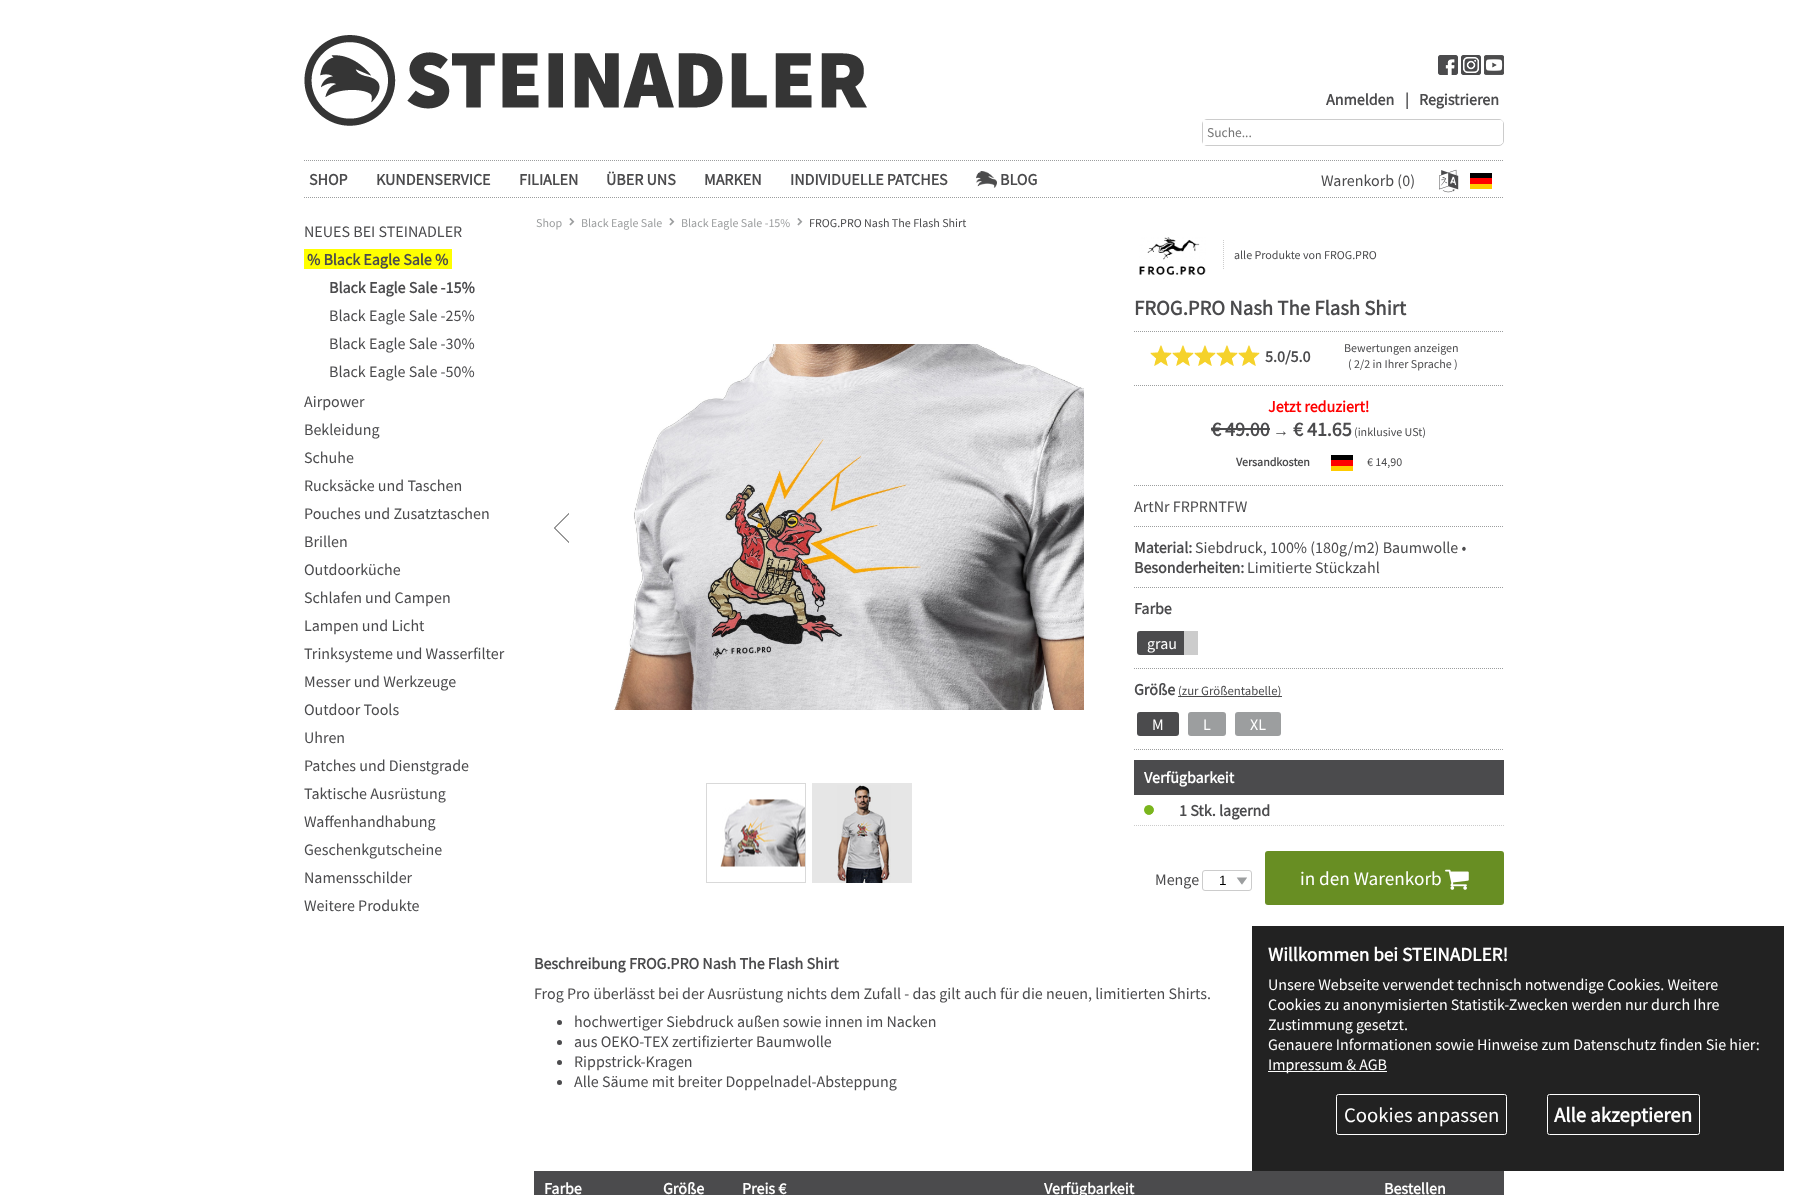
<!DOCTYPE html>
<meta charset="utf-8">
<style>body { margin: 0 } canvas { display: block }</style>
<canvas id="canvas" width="1808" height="1195"></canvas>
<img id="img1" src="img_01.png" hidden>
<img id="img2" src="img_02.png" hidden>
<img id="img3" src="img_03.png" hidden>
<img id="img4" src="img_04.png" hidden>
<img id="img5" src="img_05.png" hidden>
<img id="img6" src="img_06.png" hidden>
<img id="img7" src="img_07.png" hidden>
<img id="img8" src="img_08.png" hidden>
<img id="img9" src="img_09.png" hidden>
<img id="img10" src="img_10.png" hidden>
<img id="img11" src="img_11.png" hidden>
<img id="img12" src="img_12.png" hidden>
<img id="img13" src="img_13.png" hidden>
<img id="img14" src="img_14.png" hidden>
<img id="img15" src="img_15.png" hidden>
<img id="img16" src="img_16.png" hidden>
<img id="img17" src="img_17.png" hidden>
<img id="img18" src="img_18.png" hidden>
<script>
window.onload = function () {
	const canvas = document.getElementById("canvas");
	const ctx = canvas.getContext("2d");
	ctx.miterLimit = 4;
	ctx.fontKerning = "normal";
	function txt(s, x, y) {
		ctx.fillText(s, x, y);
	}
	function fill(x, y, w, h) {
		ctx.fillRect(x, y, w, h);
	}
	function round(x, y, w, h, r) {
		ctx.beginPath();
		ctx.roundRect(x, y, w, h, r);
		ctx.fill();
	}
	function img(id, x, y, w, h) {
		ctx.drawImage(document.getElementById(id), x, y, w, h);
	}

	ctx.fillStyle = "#FFFFFF";
	fill(0, 0, 1808, 1195);
	ctx.fillStyle = "#E6E6E6";
	fill(812, 783, 100, 100);
	img("img1", 304, 35, 563, 91);
	img("img2", 1438, 55, 20, 20);
	img("img3", 1461, 55, 20, 20);
	img("img4", 1484, 55, 20, 20);
	ctx.beginPath();
	ctx.roundRect(1202.5, 119.5, 301, 26, 4.5);
	ctx.strokeStyle = "#CCCCCC";
	ctx.stroke();
	ctx.fillStyle = "#FFFFFF";
	fill(1203, 120, 4, 25);
	round(1479, 120, 24, 24, 3);
	ctx.beginPath();
	ctx.moveTo(304, 160.5);
	ctx.lineTo(1503, 160.5);
	ctx.strokeStyle = "#9C9E9F";
	ctx.setLineDash([1, 1]);
	ctx.stroke();
	ctx.beginPath();
	ctx.moveTo(304, 197.5);
	ctx.lineTo(1503, 197.5);
	ctx.stroke();
	img("img5", 976, 171, 21, 17);
	img("img6", 1439, 169, 20, 24);
	img("img7", 1470, 173, 22, 16);
	ctx.fillStyle = "#FFFF00";
	fill(304, 249, 148, 20);
	img("img8", 569, 218, 6, 8);
	img("img8", 669, 218, 6, 8);
	img("img8", 797, 218, 6, 8);
	img("img9", 554, 513, 15, 30);
	img("img10", 614, 344, 470, 366);
	img("img11", 1049, 513, 15, 30);
	img("img12", 720, 799, 85, 68);
	ctx.strokeStyle = "#D9D9D9";
	ctx.setLineDash([]);
	ctx.strokeRect(706.5, 783.5, 99, 99);
	img("img13", 837, 785, 54, 98);
	img("img14", 1139, 237, 67, 38);
	ctx.beginPath();
	ctx.moveTo(1223.5, 240);
	ctx.lineTo(1223.5, 270);
	ctx.strokeStyle = "#CCCCCC";
	ctx.setLineDash([1, 1]);
	ctx.stroke();
	ctx.beginPath();
	ctx.moveTo(1134, 331.5);
	ctx.lineTo(1503, 331.5);
	ctx.strokeStyle = "#9C9E9F";
	ctx.stroke();
	img("img15", 1150, 345, 22, 21);
	img("img15", 1172, 345, 22, 21);
	img("img15", 1194, 345, 22, 21);
	img("img15", 1216, 345, 22, 21);
	img("img15", 1238, 345, 22, 21);
	ctx.beginPath();
	ctx.moveTo(1134, 385.5);
	ctx.lineTo(1503, 385.5);
	ctx.stroke();
	ctx.fillStyle = "#4B4B4D";
	fill(1211, 428, 59, 2);
	img("img7", 1331, 455, 22, 16);
	ctx.beginPath();
	ctx.moveTo(1134, 485.5);
	ctx.lineTo(1503, 485.5);
	ctx.stroke();
	ctx.beginPath();
	ctx.moveTo(1134, 526.5);
	ctx.lineTo(1503, 526.5);
	ctx.stroke();
	ctx.beginPath();
	ctx.moveTo(1134, 587.5);
	ctx.lineTo(1503, 587.5);
	ctx.stroke();
	round(1137, 631, 61, 24, 3);
	ctx.fillStyle = "#CCCCCC";
	fill(1184, 631, 14, 24);
	ctx.beginPath();
	ctx.moveTo(1134, 668.5);
	ctx.lineTo(1503, 668.5);
	ctx.stroke();
	ctx.fillStyle = "#4B4B4D";
	fill(1178, 696, 104, 1);
	round(1137, 712, 42, 24, 3);
	ctx.fillStyle = "#9C9E9F";
	round(1188, 712, 38, 24, 3);
	round(1235, 712, 46, 24, 3);
	ctx.beginPath();
	ctx.moveTo(1134, 749.5);
	ctx.lineTo(1503, 749.5);
	ctx.stroke();
	ctx.fillStyle = "#4B4B4D";
	fill(1134, 760, 370, 35);
	ctx.beginPath();
	ctx.moveTo(1134, 825.5);
	ctx.lineTo(1169, 825.5);
	ctx.strokeStyle = "#CCCCCC";
	ctx.stroke();
	img("img16", 1144, 805, 10, 10);
	ctx.beginPath();
	ctx.moveTo(1169, 825.5);
	ctx.lineTo(1504, 825.5);
	ctx.stroke();
	img("img17", 1236, 877, 11, 8);
	ctx.beginPath();
	ctx.roundRect(1202.5, 870.5, 49, 20, 2.5);
	ctx.setLineDash([]);
	ctx.stroke();
	ctx.fillStyle = "#688E23";
	round(1265, 851, 239, 54, 3);
	img("img18", 1445, 869, 24, 21);
	ctx.fillStyle = "#4B4B4D";
	ctx.beginPath();
	ctx.arc(559.5, 1022.5, 2.5, 0, Math.PI * 2);
	ctx.fill();
	ctx.beginPath();
	ctx.arc(559.5, 1042.5, 2.5, 0, Math.PI * 2);
	ctx.fill();
	ctx.beginPath();
	ctx.arc(559.5, 1062.5, 2.5, 0, Math.PI * 2);
	ctx.fill();
	ctx.beginPath();
	ctx.arc(559.5, 1082.5, 2.5, 0, Math.PI * 2);
	ctx.fill();
	fill(534, 1171, 970, 24);
	ctx.fillStyle = "#222222";
	fill(1252, 926, 532, 245);
	ctx.fillStyle = "#FFFFFF";
	fill(1268, 1071, 119, 1);
	ctx.beginPath();
	ctx.roundRect(1336.5, 1094.5, 170, 40, 2);
	ctx.strokeStyle = "#FFFFFF";
	ctx.stroke();
	ctx.beginPath();
	ctx.roundRect(1547.5, 1094.5, 152, 40, 2);
	ctx.stroke();
	ctx.font = "bold 16px Source Sans Pro";
	ctx.fillStyle = "#4B4B4D";
	txt("Anmelden", 1326, 105);
	txt("|", 1405, 105);
	txt("Registrieren", 1419, 105);
	ctx.font = "13.5px Source Sans Pro";
	ctx.fillStyle = "#757575";
	txt("Suche...", 1207, 137);
	ctx.font = "bold 16px Source Sans Pro";
	ctx.fillStyle = "#4B4B4D";
	txt("SHOP", 309, 185);
	txt("KUNDENSERVICE", 376, 185);
	txt("FILIALEN", 519, 185);
	txt("ÜBER UNS", 606, 185);
	txt("MARKEN", 704, 185);
	txt("INDIVIDUELLE PATCHES", 790, 185);
	txt("BLOG", 1000, 185);
	ctx.font = "16px Source Sans Pro";
	txt("Warenkorb (0)", 1321, 186);
	txt("NEUES BEI STEINADLER", 304, 237);
	ctx.font = "bold 16px Source Sans Pro";
	txt("% Black Eagle Sale %", 307, 265);
	txt("Black Eagle Sale -15%", 329, 293);
	ctx.font = "16px Source Sans Pro";
	txt("Black Eagle Sale -25%", 329, 321);
	txt("Black Eagle Sale -30%", 329, 349);
	txt("Black Eagle Sale -50%", 329, 377);
	txt("Airpower", 304, 407);
	txt("Bekleidung", 304, 435);
	txt("Schuhe", 304, 463);
	txt("Rucksäcke und Taschen", 304, 491);
	txt("Pouches und Zusatztaschen", 304, 519);
	txt("Brillen", 304, 547);
	txt("Outdoorküche", 304, 575);
	txt("Schlafen und Campen", 304, 603);
	txt("Lampen und Licht", 304, 631);
	txt("Trinksysteme und Wasserfilter", 304, 659);
	txt("Messer und Werkzeuge", 304, 687);
	txt("Outdoor Tools", 304, 715);
	txt("Uhren", 304, 743);
	txt("Patches und Dienstgrade", 304, 771);
	txt("Taktische Ausrüstung", 304, 799);
	txt("Waffenhandhabung", 304, 827);
	txt("Geschenkgutscheine", 304, 855);
	txt("Namensschilder", 304, 883);
	txt("Weitere Produkte", 304, 911);
	ctx.font = "12px Source Sans Pro";
	ctx.fillStyle = "#9C9E9F";
	txt("Shop", 536, 227);
	txt("Black Eagle Sale", 581, 227);
	txt("Black Eagle Sale -15%", 681, 227);
	ctx.fillStyle = "#4B4B4D";
	txt("FROG.PRO Nash The Flash Shirt", 809, 227);
	txt("alle Produkte von FROG.PRO", 1234, 259);
	ctx.font = "bold 20.75px Source Sans Pro";
	txt("FROG.PRO Nash The Flash Shirt", 1134, 315);
	ctx.font = "bold 16px Source Sans Pro";
	txt("5.0/5.0", 1265, 362);
	ctx.font = "12px Source Sans Pro";
	txt("Bewertungen anzeigen", 1344, 352);
	txt("( 2/2 in Ihrer Sprache )", 1348, 368);
	ctx.font = "bold 16px Source Sans Pro";
	ctx.fillStyle = "#FF0000";
	txt("Jetzt reduziert!", 1268, 412);
	ctx.font = "bold 20px Source Sans Pro";
	ctx.fillStyle = "#4B4B4D";
	txt("€ 49.00", 1211, 436);
	ctx.font = "16px Liberation Sans";
	txt("→", 1273, 436);
	ctx.font = "bold 20px Source Sans Pro";
	txt("€ 41.65", 1293, 436);
	ctx.font = "12px Source Sans Pro";
	txt("(inklusive USt)", 1354, 436);
	ctx.font = "bold 12px Source Sans Pro";
	txt("Versandkosten", 1236, 466);
	ctx.font = "12px Source Sans Pro";
	txt("€ 14,90", 1367, 466);
	ctx.font = "16px Source Sans Pro";
	txt("ArtNr FRPRNTFW", 1134, 512);
	ctx.font = "bold 16px Source Sans Pro";
	txt("Material:", 1134, 553);
	ctx.font = "16px Source Sans Pro";
	txt("Siebdruck, 100% (180g/m2) Baumwolle •", 1195, 553);
	ctx.font = "bold 16px Source Sans Pro";
	txt("Besonderheiten:", 1134, 573);
	ctx.font = "16px Source Sans Pro";
	txt("Limitierte Stückzahl", 1247, 573);
	ctx.font = "bold 16px Source Sans Pro";
	txt("Farbe", 1134, 614);
	ctx.font = "16px Source Sans Pro";
	ctx.fillStyle = "#FFFFFF";
	txt("grau", 1147, 649);
	ctx.font = "bold 16px Source Sans Pro";
	ctx.fillStyle = "#4B4B4D";
	txt("Größe", 1134, 695);
	ctx.font = "12.75px Source Sans Pro";
	txt("(zur Größentabelle)", 1178, 695);
	ctx.font = "16px Source Sans Pro";
	ctx.fillStyle = "#FFFFFF";
	txt("M", 1152, 730);
	txt("L", 1203, 730);
	txt("XL", 1250, 730);
	ctx.font = "bold 16px Source Sans Pro";
	txt("Verfügbarkeit", 1144, 783);
	ctx.fillStyle = "#4B4B4D";
	txt("1 Stk. lagernd", 1179, 816);
	ctx.font = "16px Source Sans Pro";
	txt("Menge", 1155, 885);
	ctx.font = "13.5px Liberation Sans";
	ctx.fillStyle = "#000000";
	txt("1", 1219, 885);
	ctx.font = "19.25px Source Sans Pro";
	ctx.fillStyle = "#FFFFFF";
	txt("in den Warenkorb", 1300, 885);
	ctx.font = "bold 16px Source Sans Pro";
	ctx.fillStyle = "#4B4B4D";
	txt("Beschreibung FROG.PRO Nash The Flash Shirt", 534, 969);
	ctx.font = "16px Source Sans Pro";
	txt("Frog Pro überlässt bei der Ausrüstung nichts dem Zufall - das gilt auch für die neuen, limitierten Shirts.", 534, 999);
	txt("hochwertiger Siebdruck außen sowie innen im Nacken", 574, 1027);
	txt("aus OEKO-TEX zertifizierter Baumwolle", 574, 1047);
	txt("Rippstrick-Kragen", 574, 1067);
	txt("Alle Säume mit breiter Doppelnadel-Absteppung", 574, 1087);
	ctx.font = "bold 16px Source Sans Pro";
	ctx.fillStyle = "#FFFFFF";
	txt("Farbe", 544, 1194);
	txt("Größe", 663, 1194);
	txt("Preis €", 742, 1194);
	txt("Verfügbarkeit", 1044, 1194);
	txt("Bestellen", 1384, 1194);
	ctx.font = "bold 19.25px Source Sans Pro";
	txt("Willkommen bei STEINADLER!", 1268, 961);
	ctx.font = "16px Source Sans Pro";
	txt("Unsere Webseite verwendet technisch notwendige Cookies. Weitere", 1268, 990);
	txt("Cookies zu anonymisierten Statistik-Zwecken werden nur durch Ihre", 1268, 1010);
	txt("Zustimmung gesetzt.", 1268, 1030);
	txt("Genauere Informationen sowie Hinweise zum Datenschutz finden Sie hier:", 1268, 1050);
	txt("Impressum & AGB", 1268, 1070);
	ctx.font = "20.75px Source Sans Pro";
	txt("Cookies anpassen", 1344, 1122);
	ctx.font = "bold 20.75px Source Sans Pro";
	txt("Alle akzeptieren", 1554, 1122);
};
</script>
